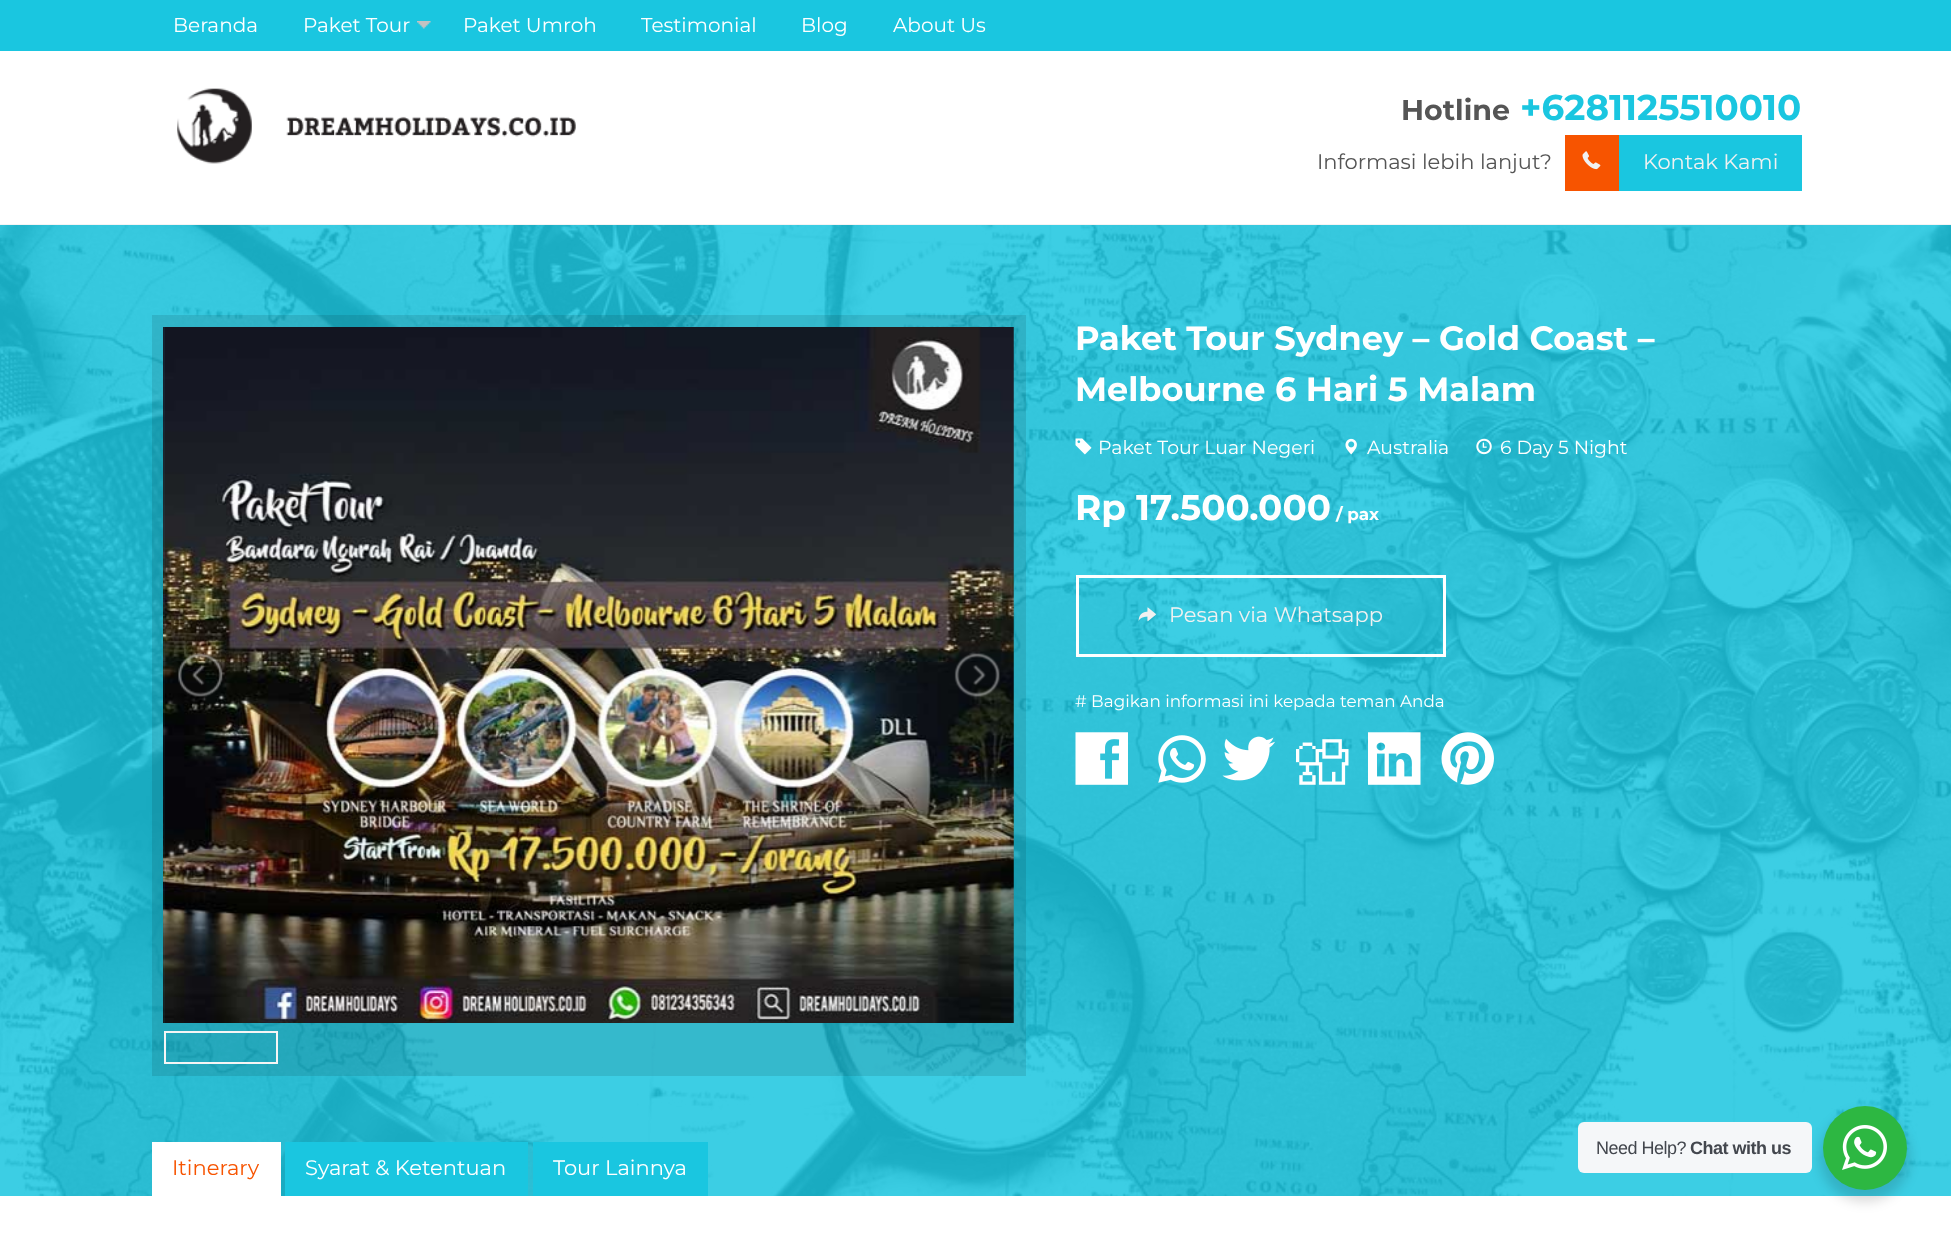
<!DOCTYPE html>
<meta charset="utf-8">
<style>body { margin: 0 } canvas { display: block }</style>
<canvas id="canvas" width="1951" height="1234"></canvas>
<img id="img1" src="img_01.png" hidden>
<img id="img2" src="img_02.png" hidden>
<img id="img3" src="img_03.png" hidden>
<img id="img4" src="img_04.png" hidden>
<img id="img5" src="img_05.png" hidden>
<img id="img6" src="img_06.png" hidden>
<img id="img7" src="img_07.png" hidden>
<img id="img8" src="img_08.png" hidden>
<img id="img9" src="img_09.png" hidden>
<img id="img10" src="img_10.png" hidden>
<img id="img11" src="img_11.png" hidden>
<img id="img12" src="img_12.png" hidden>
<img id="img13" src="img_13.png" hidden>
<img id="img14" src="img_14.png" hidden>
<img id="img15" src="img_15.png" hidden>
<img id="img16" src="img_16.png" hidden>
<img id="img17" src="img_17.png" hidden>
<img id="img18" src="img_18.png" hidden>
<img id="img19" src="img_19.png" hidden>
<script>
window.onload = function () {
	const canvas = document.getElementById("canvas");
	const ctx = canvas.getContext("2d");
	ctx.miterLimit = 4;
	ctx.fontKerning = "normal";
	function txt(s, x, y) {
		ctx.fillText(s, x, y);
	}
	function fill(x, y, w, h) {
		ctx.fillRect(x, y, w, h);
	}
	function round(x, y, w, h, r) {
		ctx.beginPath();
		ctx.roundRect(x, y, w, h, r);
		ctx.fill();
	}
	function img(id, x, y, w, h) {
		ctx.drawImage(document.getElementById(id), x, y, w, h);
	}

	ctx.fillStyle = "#1AC6E0";
	fill(0, 0, 1951, 1234);
	img("img1", 417, 21, 14, 8);
	ctx.fillStyle = "#FFFFFF";
	fill(0, 51, 1951, 173);
	ctx.fillStyle = "#F4F4F4";
	fill(0, 224, 1951, 1);
	img("img2", 177, 88, 399, 76);
	ctx.fillStyle = "#1AC6E0";
	fill(1619, 135, 183, 56);
	ctx.fillStyle = "#F75400";
	fill(1565, 135, 54, 56);
	img("img3", 1582, 151, 19, 19);
	img("img4", 0, 225, 1951, 971);
	ctx.fillStyle = "rgba(0, 0, 0, 0.1)";
	fill(152, 315, 874, 761);
	img("img5", 163, 327, 1, 696);
	img("img6", 163, 327, 851, 696);
	img("img7", 178, 653, 45, 44);
	img("img8", 954, 653, 46, 44);
	ctx.strokeStyle = "#F5F5F5";
	ctx.lineWidth = 2;
	ctx.strokeRect(165, 1032, 112, 31);
	img("img9", 1075, 438, 17, 17);
	img("img10", 1345, 438, 12, 17);
	img("img11", 1476, 438, 16, 17);
	ctx.strokeStyle = "#FFFFFF";
	ctx.lineWidth = 3;
	ctx.strokeRect(1077.5, 576.5, 367, 79);
	img("img12", 1138, 607, 18, 15);
	img("img13", 1075, 732, 53, 53);
	img("img14", 1158, 735, 48, 48);
	img("img15", 1222, 736, 53, 45);
	img("img16", 1296, 739, 53, 46);
	img("img17", 1368, 732, 53, 53);
	img("img18", 1441, 732, 53, 53);
	ctx.fillStyle = "#FFFFFF";
	fill(0, 1196, 1951, 38);
	ctx.fillStyle = "rgba(0, 0, 0, 0.14)";
	ctx.filter = "blur(6px)";
	ctx.beginPath();
	ctx.roundRect(1820, 1112, 90, 90, 45);
	ctx.fill();
	ctx.filter = "none";
	ctx.fillStyle = "#F5F7F9";
	round(1578, 1122, 234, 51, 6);
	ctx.fillStyle = "#2DB742";
	ctx.beginPath();
	ctx.arc(1865, 1148, 42, 0, Math.PI * 2);
	ctx.fill();
	img("img19", 1842, 1125, 45, 45);
	ctx.fillStyle = "#FFFFFF";
	fill(152, 1142, 129, 54);
	ctx.fillStyle = "#1AC6E0";
	fill(285, 1142, 243, 54);
	fill(533, 1142, 175, 54);
	ctx.font = "20px Montserrat";
	ctx.fillStyle = "#FFFFFF";
	txt("Beranda", 173, 32);
	txt("Paket Tour", 303, 32);
	txt("Paket Umroh", 463, 32);
	txt("Testimonial", 641, 32);
	txt("Blog", 801, 32);
	txt("About Us", 893, 32);
	ctx.font = "bold 28.5px Montserrat";
	ctx.fillStyle = "#555555";
	txt("Hotline", 1401, 120);
	ctx.font = "bold 35.75px Montserrat";
	ctx.fillStyle = "#1AC6E0";
	txt("+6281125510010", 1520, 120);
	ctx.font = "21px Montserrat";
	ctx.fillStyle = "#555555";
	txt("Informasi lebih lanjut?", 1317, 169);
	ctx.fillStyle = "#F1F1F1";
	txt("Kontak Kami", 1643, 169);
	ctx.font = "bold 33.6px Montserrat";
	ctx.fillStyle = "#FFFFFF";
	txt("Paket Tour Sydney – Gold Coast –", 1075, 350);
	txt("Melbourne 6 Hari 5 Malam", 1075, 401);
	ctx.font = "18.9px Montserrat";
	txt("Paket Tour Luar Negeri", 1098, 454);
	txt("Australia", 1367, 454);
	txt("6 Day 5 Night", 1500, 454);
	ctx.font = "bold 35.75px Montserrat";
	txt("Rp 17.500.000", 1075, 520);
	ctx.font = "bold 16.8px Montserrat";
	txt("/ pax", 1336, 520);
	ctx.font = "21px Montserrat";
	ctx.fillStyle = "#F1F1F1";
	txt("Pesan via Whatsapp", 1169, 622);
	ctx.font = "16.8px Montserrat";
	ctx.fillStyle = "#FFFFFF";
	txt("# Bagikan informasi ini kepada teman Anda", 1075, 707);
	ctx.letterSpacing = "-0.5px";
	ctx.font = "18px Liberation Sans";
	ctx.fillStyle = "#43474E";
	txt("Need Help?", 1596, 1154);
	ctx.font = "bold 18px Liberation Sans";
	txt("Chat with us", 1690, 1154);
	ctx.letterSpacing = "0px";
	ctx.font = "21px Montserrat";
	ctx.fillStyle = "#F75400";
	txt("Itinerary", 172, 1175);
	ctx.fillStyle = "#FFFFFF";
	txt("Syarat & Ketentuan", 305, 1175);
	txt("Tour Lainnya", 553, 1175);
};
</script>
